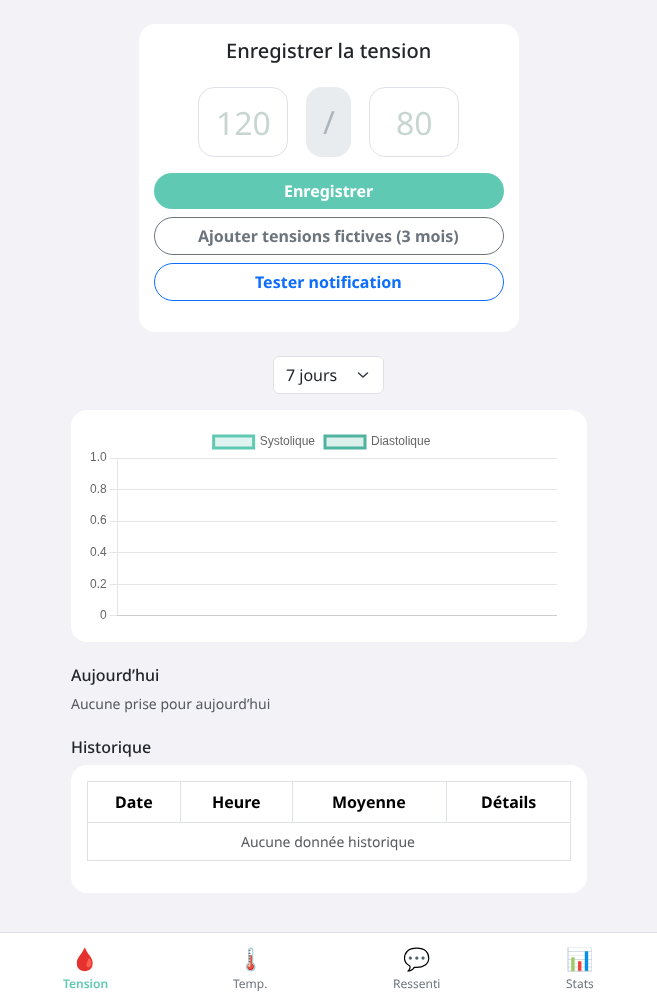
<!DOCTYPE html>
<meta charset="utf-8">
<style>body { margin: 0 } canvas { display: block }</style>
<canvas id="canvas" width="657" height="1002"></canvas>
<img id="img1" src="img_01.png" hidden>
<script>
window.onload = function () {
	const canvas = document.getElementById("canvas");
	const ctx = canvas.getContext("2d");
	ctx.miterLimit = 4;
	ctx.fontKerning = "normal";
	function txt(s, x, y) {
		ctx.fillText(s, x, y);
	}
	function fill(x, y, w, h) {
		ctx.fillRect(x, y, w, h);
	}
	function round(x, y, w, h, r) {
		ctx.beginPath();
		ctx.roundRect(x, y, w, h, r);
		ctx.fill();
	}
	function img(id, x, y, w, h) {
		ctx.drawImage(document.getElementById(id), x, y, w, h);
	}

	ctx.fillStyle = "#F2F2F7";
	fill(0, 0, 657, 1002);
	ctx.fillStyle = "#FFFFFF";
	round(139, 24, 380, 308, 16);
	ctx.beginPath();
	ctx.roundRect(198.5, 87.5, 89, 69, 15.5);
	ctx.strokeStyle = "#DEE2E6";
	ctx.stroke();
	ctx.fillStyle = "#E9ECEF";
	round(306, 87, 45, 70, 16);
	ctx.beginPath();
	ctx.roundRect(369.5, 87.5, 89, 69, 15.5);
	ctx.stroke();
	ctx.fillStyle = "#5FC9B3";
	round(154, 173, 350, 36, 18);
	ctx.beginPath();
	ctx.roundRect(154.5, 217.5, 349, 37, 18.5);
	ctx.strokeStyle = "#6C757D";
	ctx.stroke();
	ctx.beginPath();
	ctx.roundRect(154.5, 263.5, 349, 37, 18.5);
	ctx.strokeStyle = "#0D6EFD";
	ctx.stroke();
	ctx.fillStyle = "#FFFFFF";
	round(273, 356, 111, 38, 6);
	ctx.beginPath();
	ctx.moveTo(358.5, 373);
	ctx.lineTo(363, 377);
	ctx.lineTo(367.5, 373);
	ctx.strokeStyle = "#343A40";
	ctx.lineWidth = 1.5;
	ctx.lineCap = "round";
	ctx.lineJoin = "round";
	ctx.stroke();
	ctx.beginPath();
	ctx.roundRect(273.5, 356.5, 110, 37, 5.5);
	ctx.strokeStyle = "#DEE2E6";
	ctx.lineWidth = 1;
	ctx.lineJoin = "miter";
	ctx.stroke();
	round(71, 410, 516, 232, 16);
	img("img1", 90, 434, 467, 185);
	round(71, 765, 516, 128, 16);
	ctx.fillStyle = "#DEE2E6";
	fill(87, 781, 484, 1);
	fill(87, 822, 484, 1);
	fill(180, 781, 1, 42);
	fill(292, 781, 1, 42);
	fill(446, 781, 1, 42);
	fill(87, 860, 484, 1);
	fill(570, 781, 1, 80);
	fill(87, 781, 1, 80);
	ctx.fillStyle = "#FFFFFF";
	fill(0, 933, 657, 69);
	ctx.fillStyle = "#DEE2E6";
	fill(0, 932, 657, 1);
	ctx.font = "500 20px Noto Sans";
	ctx.fillStyle = "#212529";
	txt("Enregistrer la tension", 226, 58);
	ctx.font = "32px Noto Sans";
	ctx.fillStyle = "#C8D6D1";
	txt("120", 216, 135);
	ctx.fillStyle = "#ADB5BD";
	txt("/", 323, 134);
	ctx.fillStyle = "#C8D6D1";
	txt("80", 396, 135);
	ctx.font = "bold 16px Noto Sans";
	ctx.fillStyle = "#FFFFFF";
	txt("Enregistrer", 284, 197);
	ctx.fillStyle = "#6C757D";
	txt("Ajouter tensions fictives (3 mois)", 198, 242);
	ctx.fillStyle = "#0D6EFD";
	txt("Tester notification", 255, 288);
	ctx.font = "16px Noto Sans";
	ctx.fillStyle = "#212529";
	txt("7 jours", 286, 381);
	ctx.font = "500 16px Noto Sans";
	txt("Aujourd’hui", 71, 681);
	ctx.font = "14px Noto Sans";
	ctx.fillStyle = "#55585D";
	txt("Aucune prise pour aujourd’hui", 71, 709);
	ctx.font = "500 16px Noto Sans";
	ctx.fillStyle = "#212529";
	txt("Historique", 71, 753);
	ctx.font = "bold 16px Noto Sans";
	ctx.fillStyle = "#000000";
	txt("Date", 115, 808);
	txt("Heure", 212, 808);
	txt("Moyenne", 332, 808);
	txt("Détails", 481, 808);
	ctx.font = "14px Noto Sans";
	ctx.fillStyle = "#55585D";
	txt("Aucune donnée historique", 241, 847);
	ctx.font = "22px Noto Color Emoji";
	ctx.fillStyle = "#5FC9B3";
	txt("🩸", 71, 967);
	ctx.font = "600 12px Noto Sans";
	txt("Tension", 63, 988);
	ctx.font = "22px Noto Color Emoji";
	ctx.fillStyle = "#6C757D";
	txt("🌡️", 237, 967);
	ctx.font = "12px Noto Sans";
	txt("Temp.", 233, 988);
	ctx.font = "22px Noto Color Emoji";
	txt("💬", 403, 967);
	ctx.font = "12px Noto Sans";
	txt("Ressenti", 393, 988);
	ctx.font = "22px Noto Color Emoji";
	txt("📊", 566, 967);
	ctx.font = "12px Noto Sans";
	txt("Stats", 566, 988);
};
</script>
